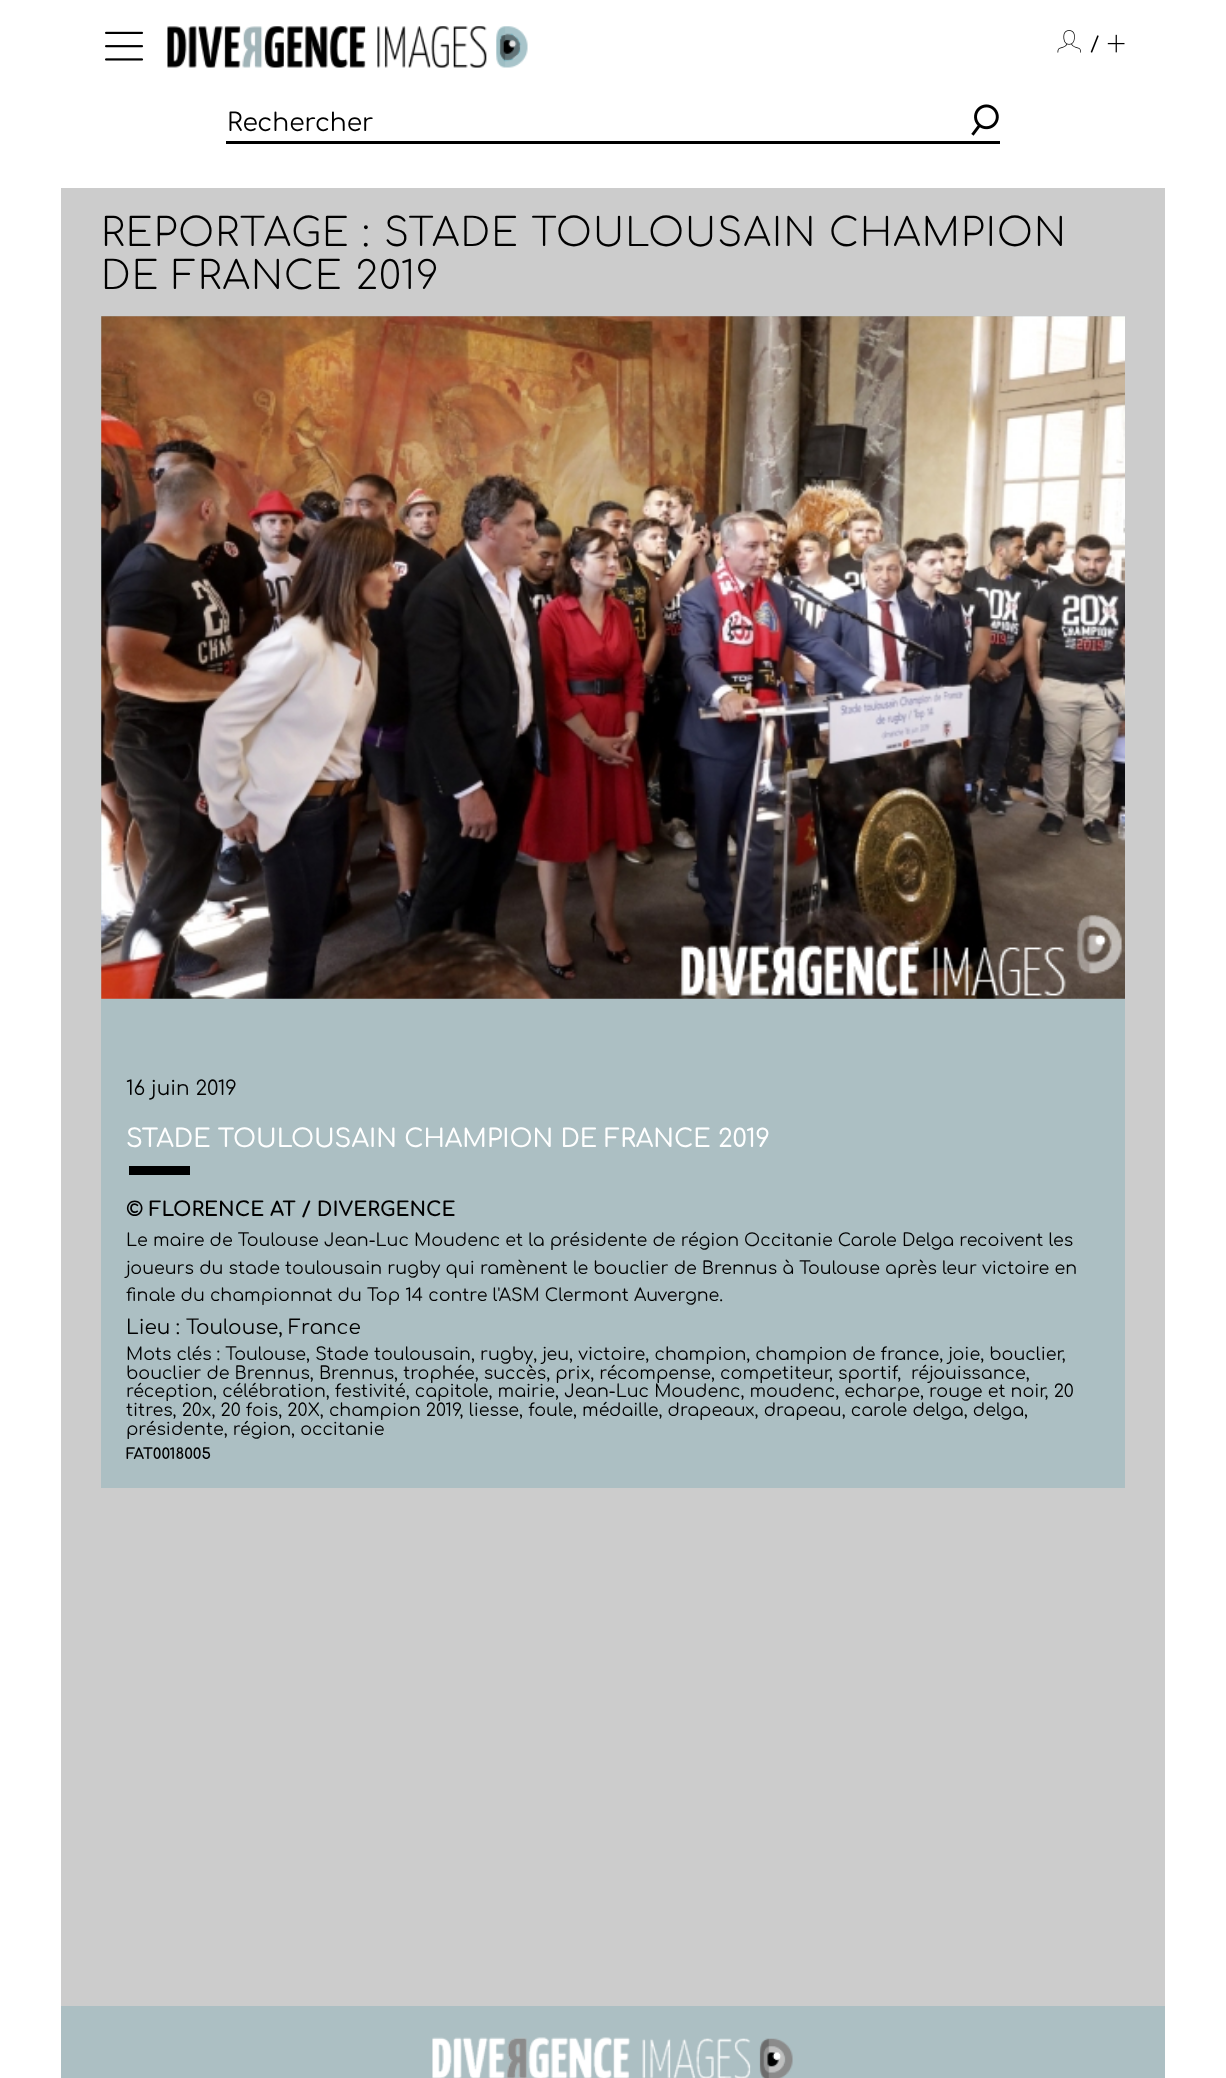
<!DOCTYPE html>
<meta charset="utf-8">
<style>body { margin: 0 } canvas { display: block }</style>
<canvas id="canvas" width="1226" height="2078"></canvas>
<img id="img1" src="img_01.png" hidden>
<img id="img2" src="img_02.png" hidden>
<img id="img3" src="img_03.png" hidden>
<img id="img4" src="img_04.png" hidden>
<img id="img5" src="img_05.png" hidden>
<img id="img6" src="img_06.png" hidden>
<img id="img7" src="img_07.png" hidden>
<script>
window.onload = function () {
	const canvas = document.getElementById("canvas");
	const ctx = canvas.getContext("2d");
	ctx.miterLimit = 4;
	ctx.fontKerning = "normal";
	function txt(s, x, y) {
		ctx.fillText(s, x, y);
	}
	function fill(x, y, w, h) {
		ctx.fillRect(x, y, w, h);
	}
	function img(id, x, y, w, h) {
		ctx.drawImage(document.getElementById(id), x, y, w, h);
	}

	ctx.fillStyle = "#FFFFFF";
	fill(0, 0, 1226, 2078);
	ctx.fillStyle = "#CCCCCC";
	fill(61, 188, 1104, 1818);
	img("img1", 105, 31, 39, 30);
	img("img2", 167, 26, 361, 42);
	img("img3", 1057, 30, 24, 23);
	img("img4", 1107, 34, 18, 19);
	ctx.fillStyle = "#000000";
	fill(226, 141, 774, 3);
	img("img5", 971, 104, 28, 32);
	ctx.fillStyle = "#ACBFC3";
	fill(101, 316, 1024, 1172);
	img("img6", 101, 316, 1024, 683);
	ctx.fillStyle = "#000000";
	fill(129, 1166, 61, 9);
	ctx.fillStyle = "#ACBFC3";
	fill(61, 2006, 1104, 72);
	img("img7", 432, 2037, 361, 41);
	ctx.letterSpacing = "1.25px";
	ctx.font = "20px Comfortaa";
	ctx.fillStyle = "#000000";
	txt("/", 1090, 51);
	ctx.letterSpacing = "0px";
	ctx.font = "25px Comfortaa";
	txt("Rechercher", 227, 131);
	ctx.letterSpacing = "1.25px";
	ctx.font = "300 38.75px Comfortaa";
	txt("REPORTAGE : STADE TOULOUSAIN CHAMPION", 101, 246);
	txt("DE FRANCE 2019", 101, 289);
	ctx.letterSpacing = "0px";
	ctx.font = "20px Comfortaa";
	txt("16 juin 2019", 126, 1095);
	ctx.font = "500 25px Comfortaa";
	ctx.fillStyle = "#FFFFFF";
	txt("STADE TOULOUSAIN CHAMPION DE FRANCE 2019", 126, 1147);
	ctx.font = "bold 20px Comfortaa";
	ctx.fillStyle = "#000000";
	txt("© FLORENCE AT / DIVERGENCE", 126, 1216);
	ctx.font = "17.5px Comfortaa";
	txt("Le maire de Toulouse Jean-Luc Moudenc et la présidente de région Occitanie Carole Delga recoivent les", 126, 1246);
	txt("joueurs du stade toulousain rugby qui ramènent le bouclier de Brennus à Toulouse après leur victoire en", 126, 1274);
	txt("finale du championnat du Top 14 contre l'ASM Clermont Auvergne.", 126, 1301);
	ctx.font = "20px Comfortaa";
	txt("Lieu : Toulouse, France", 126, 1334);
	ctx.font = "17.5px Comfortaa";
	txt("Mots clés : Toulouse, Stade toulousain, rugby, jeu, victoire, champion, champion de france, joie, bouclier,", 126, 1360);
	txt("bouclier de Brennus, Brennus, trophée, succès, prix, récompense, competiteur, sportif,", 126, 1379);
	txt("réjouissance,", 911, 1379);
	txt("réception, célébration, festivité, capitole, mairie, Jean-Luc Moudenc, moudenc, echarpe, rouge et noir, 20", 126, 1397);
	txt("titres, 20x, 20 fois, 20X, champion 2019, liesse, foule, médaille, drapeaux, drapeau, carole delga, delga,", 126, 1416);
	txt("présidente, région, occitanie", 126, 1435);
	ctx.font = "bold 15px Comfortaa";
	txt("FAT0018005", 126, 1459);
};
</script>
